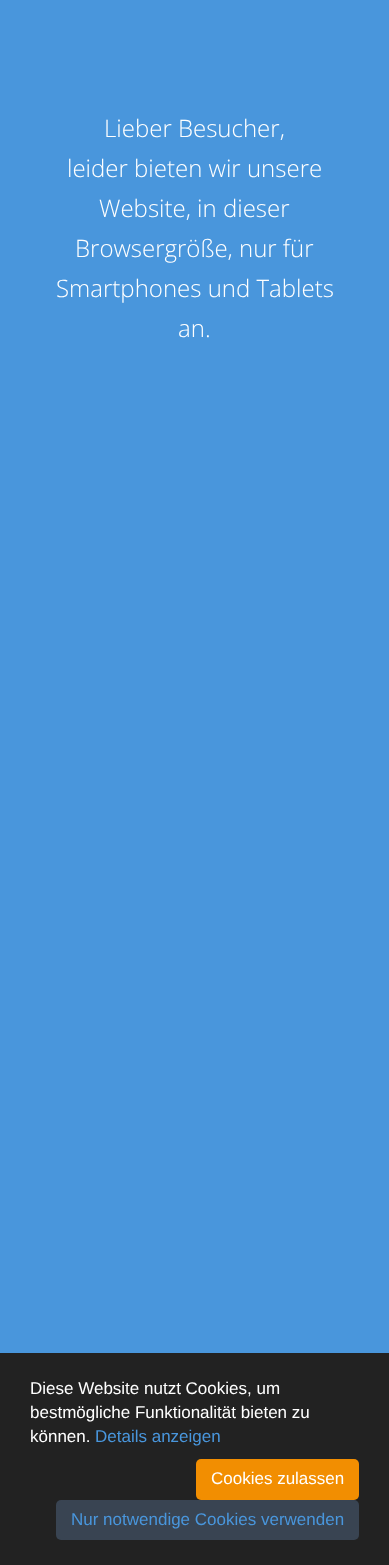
<!DOCTYPE html>
<meta charset="utf-8">
<style>body { margin: 0 } canvas { display: block }</style>
<canvas id="canvas" width="389" height="1565"></canvas>
<script>
window.onload = function () {
	const canvas = document.getElementById("canvas");
	const ctx = canvas.getContext("2d");
	ctx.miterLimit = 4;
	ctx.fontKerning = "normal";
	function txt(s, x, y) {
		ctx.fillText(s, x, y);
	}
	function fill(x, y, w, h) {
		ctx.fillRect(x, y, w, h);
	}
	function round(x, y, w, h, r) {
		ctx.beginPath();
		ctx.roundRect(x, y, w, h, r);
		ctx.fill();
	}

	ctx.fillStyle = "#4996DC";
	fill(0, 0, 389, 1565);
	ctx.fillStyle = "#222222";
	fill(0, 1353, 389, 212);
	ctx.fillStyle = "#F28E01";
	round(196, 1459, 163, 41, 5);
	ctx.fillStyle = "#394452";
	round(56, 1500, 303, 40, 5);
	ctx.font = "300 24px Open Sans";
	ctx.fillStyle = "#FFFFFF";
	txt("Lieber Besucher,", 104, 137);
	txt("leider bieten wir unsere", 67, 177);
	txt("Website, in dieser", 99, 217);
	txt("Browsergröße, nur für", 75, 257);
	txt("Smartphones und Tablets", 56, 297);
	txt("an.", 178, 337);
	ctx.font = "17px Liberation Sans";
	txt("Diese Website nutzt Cookies, um", 30, 1394);
	txt("bestmögliche Funktionalität bieten zu", 30, 1418);
	txt("können.", 30, 1442);
	ctx.fillStyle = "#4996DC";
	txt("Details anzeigen", 95, 1442);
	ctx.fillStyle = "#FFFFFF";
	txt("Cookies zulassen", 211, 1484);
	ctx.fillStyle = "#4996DC";
	txt("Nur notwendige Cookies verwenden", 71, 1525);
};
</script>
